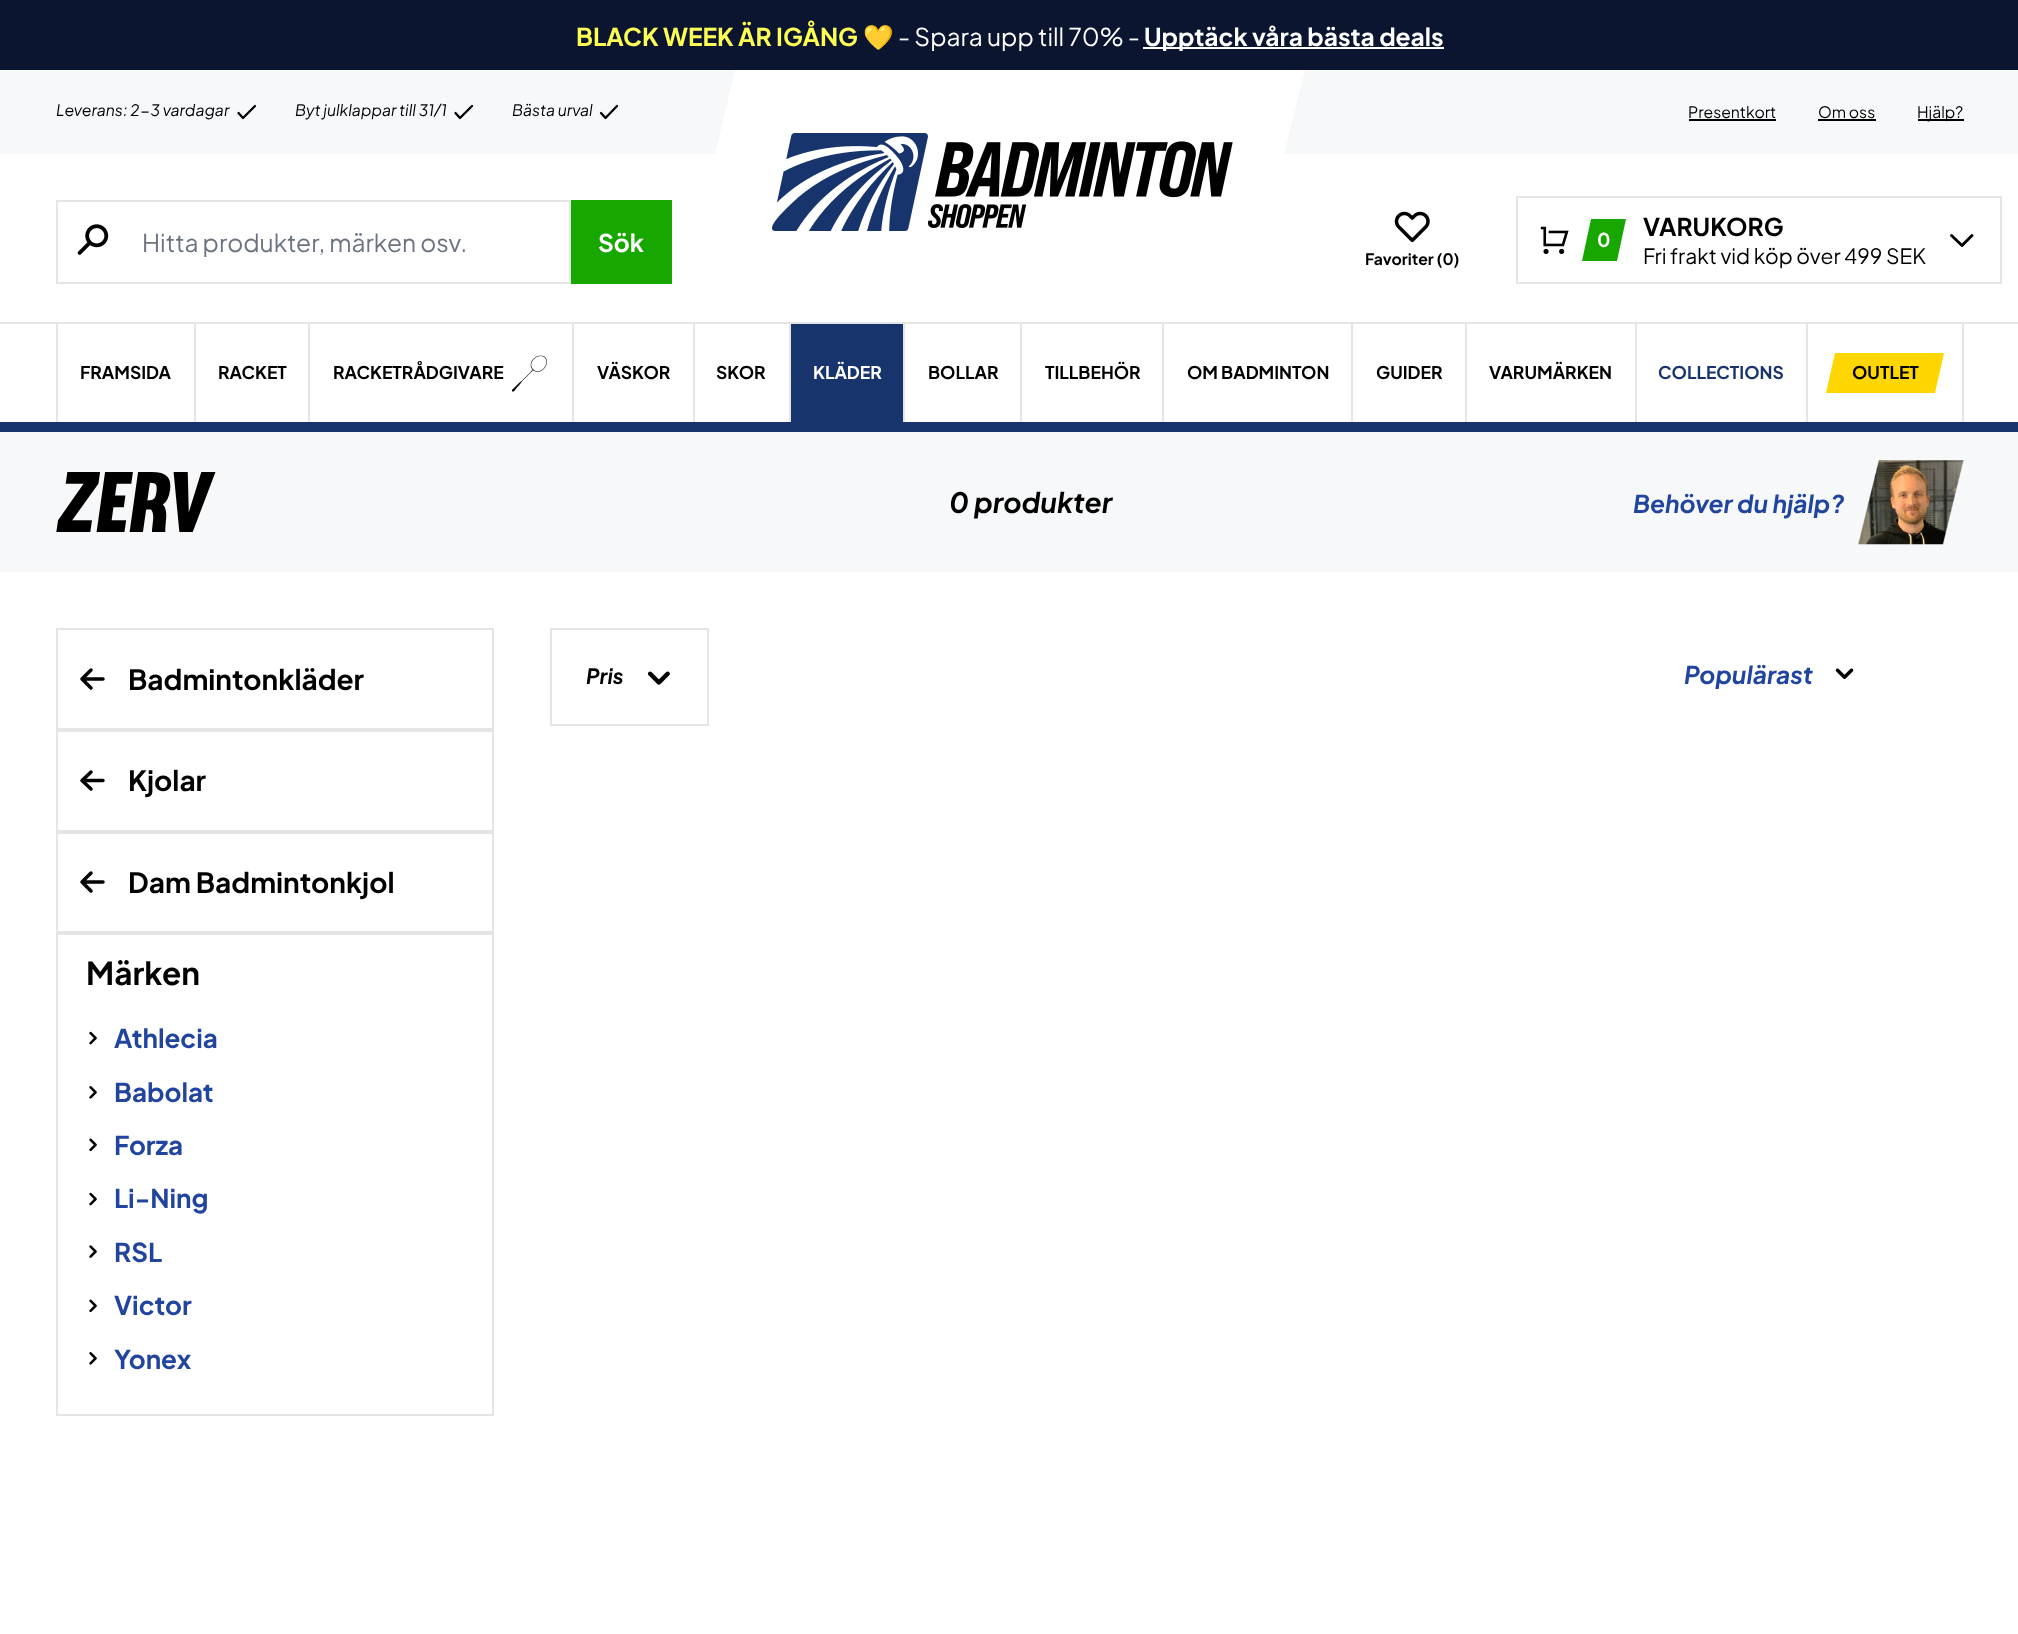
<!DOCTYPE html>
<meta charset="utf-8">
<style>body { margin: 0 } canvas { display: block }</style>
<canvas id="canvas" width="2018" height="1634"></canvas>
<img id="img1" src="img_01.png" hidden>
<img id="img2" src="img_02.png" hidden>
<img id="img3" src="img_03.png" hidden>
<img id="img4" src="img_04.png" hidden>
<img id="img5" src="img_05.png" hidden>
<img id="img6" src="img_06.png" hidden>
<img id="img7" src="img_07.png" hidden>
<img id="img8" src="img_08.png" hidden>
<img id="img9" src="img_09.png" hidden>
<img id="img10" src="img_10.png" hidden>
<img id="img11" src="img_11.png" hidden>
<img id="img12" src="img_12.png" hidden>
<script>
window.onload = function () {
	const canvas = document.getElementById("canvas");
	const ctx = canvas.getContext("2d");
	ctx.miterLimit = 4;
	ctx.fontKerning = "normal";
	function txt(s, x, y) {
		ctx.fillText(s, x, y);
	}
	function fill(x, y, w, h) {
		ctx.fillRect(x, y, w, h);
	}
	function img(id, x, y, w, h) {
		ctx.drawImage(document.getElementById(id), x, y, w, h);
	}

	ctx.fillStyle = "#FFFFFF";
	fill(0, 0, 2018, 1634);
	ctx.fillStyle = "#0B1530";
	fill(0, 0, 2018, 70);
	ctx.fillStyle = "#FFFFFF";
	fill(1143, 47, 301, 2);
	ctx.fillStyle = "#F6F8FA";
	fill(0, 70, 2018, 84);
	ctx.beginPath();
	ctx.moveTo(238.5, 113);
	ctx.lineTo(243, 118);
	ctx.lineTo(255, 106);
	ctx.strokeStyle = "#000000";
	ctx.lineWidth = 2.3;
	ctx.lineCap = "round";
	ctx.lineJoin = "round";
	ctx.stroke();
	ctx.beginPath();
	ctx.moveTo(455.5, 113);
	ctx.lineTo(460, 118);
	ctx.lineTo(472, 106);
	ctx.stroke();
	ctx.beginPath();
	ctx.moveTo(601, 113);
	ctx.lineTo(605.5, 118);
	ctx.lineTo(617, 106);
	ctx.stroke();
	ctx.fillStyle = "#FFFFFF";
	fill(715, 70, 590, 84);
	ctx.fillStyle = "#F6F8FA";
	ctx.beginPath();
	ctx.moveTo(686, 70);
	ctx.lineTo(735, 70);
	ctx.lineTo(715, 154);
	ctx.lineTo(666, 154);
	ctx.closePath();
	ctx.fill();
	ctx.beginPath();
	ctx.moveTo(1305, 70);
	ctx.lineTo(1354, 70);
	ctx.lineTo(1333, 154);
	ctx.lineTo(1284, 154);
	ctx.closePath();
	ctx.fill();
	img("img1", 772, 133, 461, 98);
	ctx.fillStyle = "#000000";
	fill(1689, 119, 87, 2);
	fill(1818, 119, 58, 2);
	fill(1918, 119, 46, 2);
	ctx.strokeStyle = "#E5E5E5";
	ctx.lineWidth = 2;
	ctx.lineJoin = "miter";
	ctx.strokeRect(57, 201, 513, 82);
	img("img2", 77, 224, 32, 31);
	ctx.fillStyle = "#17A700";
	fill(571, 200, 101, 84);
	img("img3", 1394, 211, 36, 32);
	ctx.strokeRect(1517, 197, 484, 86);
	img("img4", 1540, 226, 29, 28);
	ctx.beginPath();
	ctx.moveTo(1591, 219);
	ctx.lineTo(1626, 219);
	ctx.lineTo(1617, 261);
	ctx.lineTo(1582, 261);
	ctx.closePath();
	ctx.fill();
	ctx.beginPath();
	ctx.moveTo(1972, 235.5);
	ctx.lineTo(1962, 245.5);
	ctx.lineTo(1951.5, 235.5);
	ctx.strokeStyle = "#000000";
	ctx.lineWidth = 2.9;
	ctx.lineJoin = "round";
	ctx.stroke();
	ctx.fillStyle = "#E5E5E5";
	fill(0, 322, 2018, 2);
	fill(56, 324, 2, 98);
	fill(194, 324, 2, 98);
	fill(308, 324, 2, 98);
	img("img5", 512, 355, 35, 37);
	fill(572, 324, 2, 98);
	fill(693, 324, 2, 98);
	fill(789, 324, 2, 98);
	ctx.fillStyle = "#18346D";
	fill(791, 324, 112, 98);
	ctx.fillStyle = "#E5E5E5";
	fill(903, 324, 2, 98);
	fill(1020, 324, 2, 98);
	fill(1162, 324, 2, 98);
	fill(1351, 324, 2, 98);
	fill(1465, 324, 2, 98);
	fill(1635, 324, 2, 98);
	fill(1962, 324, 2, 98);
	fill(1806, 324, 2, 98);
	ctx.fillStyle = "#FFD600";
	ctx.beginPath();
	ctx.moveTo(1835, 353);
	ctx.lineTo(1944, 353);
	ctx.lineTo(1935, 393);
	ctx.lineTo(1826, 393);
	ctx.closePath();
	ctx.fill();
	ctx.fillStyle = "#18346D";
	fill(0, 422, 2018, 10);
	ctx.fillStyle = "#F6F8FA";
	fill(0, 432, 2018, 140);
	img("img6", 1858, 460, 106, 85);
	ctx.strokeStyle = "#E5E5E5";
	ctx.lineWidth = 2;
	ctx.lineJoin = "miter";
	ctx.strokeRect(57, 629, 436, 786);
	ctx.fillStyle = "#E5E5E5";
	fill(58, 728, 434, 4);
	ctx.beginPath();
	ctx.moveTo(91, 688);
	ctx.lineTo(82, 679);
	ctx.moveTo(82, 679);
	ctx.lineTo(91, 670);
	ctx.moveTo(82, 679);
	ctx.lineTo(103, 679);
	ctx.strokeStyle = "#000000";
	ctx.lineWidth = 3.5;
	ctx.lineJoin = "round";
	ctx.stroke();
	fill(58, 830, 434, 4);
	ctx.beginPath();
	ctx.moveTo(91, 789);
	ctx.lineTo(82, 780.5);
	ctx.moveTo(82, 780.5);
	ctx.lineTo(91, 772);
	ctx.moveTo(82, 780.5);
	ctx.lineTo(103, 780.5);
	ctx.stroke();
	fill(58, 931, 434, 4);
	ctx.beginPath();
	ctx.moveTo(91, 891);
	ctx.lineTo(82, 882);
	ctx.moveTo(82, 882);
	ctx.lineTo(91, 873);
	ctx.moveTo(82, 882);
	ctx.lineTo(103, 882);
	ctx.stroke();
	img("img7", 89, 1031, 8, 14);
	img("img8", 89, 1086, 8, 13);
	img("img9", 89, 1138, 8, 14);
	img("img7", 89, 1192, 8, 14);
	img("img10", 89, 1245, 8, 13);
	img("img9", 89, 1299, 8, 14);
	img("img8", 89, 1352, 8, 13);
	ctx.strokeStyle = "#E5E5E5";
	ctx.lineWidth = 2;
	ctx.lineJoin = "miter";
	ctx.strokeRect(551, 629, 157, 96);
	img("img11", 647, 671, 23, 14);
	img("img12", 1835, 668, 19, 11);
	ctx.font = "bold 24.5px Plus Jakarta Sans";
	ctx.fillStyle = "#FEFF54";
	txt("BLACK WEEK ÄR IGÅNG", 576, 46);
	ctx.font = "bold 24.5px Noto Color Emoji";
	txt("💛", 863, 46);
	ctx.font = "24.5px Plus Jakarta Sans";
	ctx.fillStyle = "#FFFFFF";
	txt("- Spara upp till 70% -", 898, 46);
	ctx.font = "bold 24.5px Plus Jakarta Sans";
	txt("Upptäck våra bästa deals", 1144, 46);
	ctx.font = "italic 15.75px Plus Jakarta Sans";
	ctx.fillStyle = "#000000";
	txt("Leverans: 2-3 vardagar", 56, 116);
	txt("Byt julklappar till 31/1", 295, 116);
	txt("Bästa urval", 512, 116);
	ctx.font = "15.75px Plus Jakarta Sans";
	txt("Presentkort", 1688, 118);
	txt("Om oss", 1818, 118);
	txt("Hjälp?", 1917, 118);
	ctx.font = "24.5px Plus Jakarta Sans";
	ctx.fillStyle = "#6B7280";
	txt("Hitta produkter, märken osv.", 142, 252);
	ctx.font = "bold 24.5px Plus Jakarta Sans";
	ctx.fillStyle = "#FFFFFF";
	txt("Sök", 598, 252);
	ctx.font = "bold 15.75px Plus Jakarta Sans";
	ctx.fillStyle = "#000000";
	txt("Favoriter (0)", 1365, 265);
	ctx.font = "bold 19px Plus Jakarta Sans";
	ctx.fillStyle = "#FFFFFF";
	txt("0", 1597, 247);
	ctx.font = "bold 24.5px Plus Jakarta Sans";
	ctx.fillStyle = "#000000";
	txt("VARUKORG", 1643, 236);
	ctx.font = "21px Plus Jakarta Sans";
	txt("Fri frakt vid köp över 499 SEK", 1643, 264);
	ctx.font = "bold 17.5px Plus Jakarta Sans";
	txt("FRAMSIDA", 80, 379);
	txt("RACKET", 218, 379);
	txt("RACKETRÅDGIVARE", 333, 379);
	txt("VÄSKOR", 597, 379);
	txt("SKOR", 716, 379);
	ctx.fillStyle = "#FFFFFF";
	txt("KLÄDER", 813, 379);
	ctx.fillStyle = "#000000";
	txt("BOLLAR", 928, 379);
	txt("TILLBEHÖR", 1045, 379);
	txt("OM BADMINTON", 1187, 379);
	txt("GUIDER", 1376, 379);
	txt("VARUMÄRKEN", 1489, 379);
	ctx.fillStyle = "#18346D";
	txt("COLLECTIONS", 1658, 379);
	ctx.fillStyle = "#000000";
	txt("OUTLET", 1852, 379);
	ctx.font = "italic 84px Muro";
	txt("ZERV", 56, 532);
	ctx.font = "italic bold 28px Plus Jakarta Sans";
	txt("0 produkter", 949, 513);
	ctx.font = "italic bold 24.5px Plus Jakarta Sans";
	ctx.fillStyle = "#21459F";
	txt("Behöver du hjälp?", 1633, 513);
	ctx.font = "bold 28px Plus Jakarta Sans";
	ctx.fillStyle = "#000000";
	txt("Badmintonkläder", 128, 690);
	txt("Kjolar", 128, 791);
	txt("Dam Badmintonkjol", 128, 893);
	ctx.font = "bold 31.5px Plus Jakarta Sans";
	txt("Märken", 86, 985);
	ctx.font = "bold 26px Plus Jakarta Sans";
	ctx.fillStyle = "#21459F";
	txt("Athlecia", 114, 1048);
	txt("Babolat", 114, 1102);
	txt("Forza", 114, 1155);
	txt("Li-Ning", 114, 1208);
	txt("RSL", 114, 1262);
	txt("Victor", 114, 1315);
	txt("Yonex", 114, 1369);
	ctx.font = "italic bold 21px Plus Jakarta Sans";
	ctx.fillStyle = "#000000";
	txt("Pris", 586, 684);
	ctx.font = "italic bold 24.5px Plus Jakarta Sans";
	ctx.fillStyle = "#21459F";
	txt("Populärast", 1684, 684);
};
</script>
